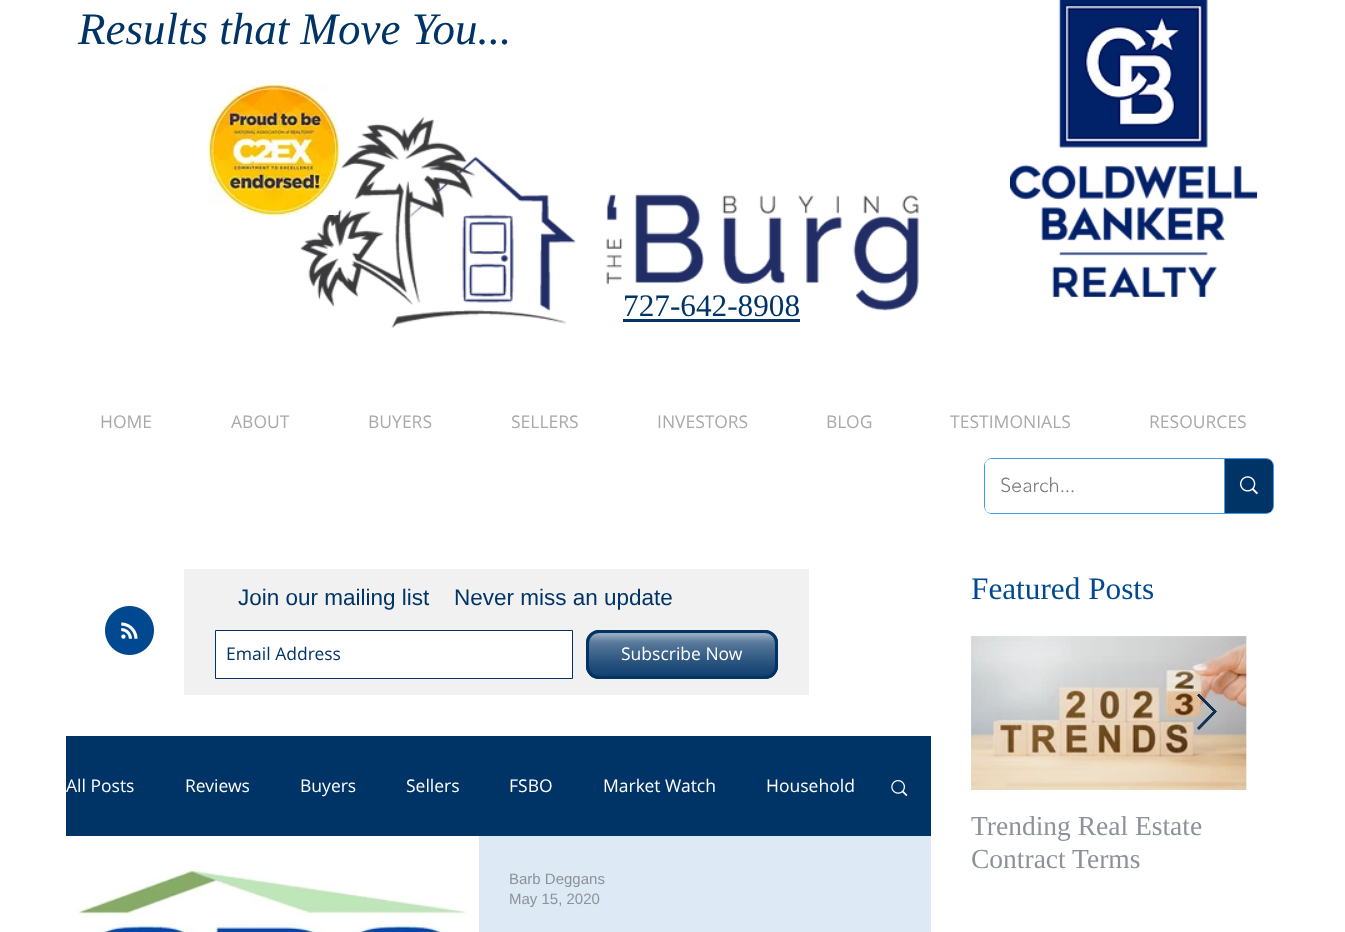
<!DOCTYPE html>
<meta charset="utf-8">
<style>body { margin: 0 } canvas { display: block }</style>
<canvas id="canvas" width="1345" height="932"></canvas>
<img id="img1" src="img_01.png" hidden>
<img id="img2" src="img_03.png" hidden>
<img id="img3" src="img_02.png" hidden>
<img id="img4" src="img_04.png" hidden>
<img id="img5" src="img_05.png" hidden>
<img id="img6" src="img_06.png" hidden>
<img id="img7" src="img_07.png" hidden>
<img id="img8" src="img_08.png" hidden>
<img id="img9" src="img_09.png" hidden>
<img id="img10" src="img_10.png" hidden>
<script>
window.onload = function () {
	const canvas = document.getElementById("canvas");
	const ctx = canvas.getContext("2d");
	ctx.miterLimit = 4;
	ctx.fontKerning = "normal";
	function txt(s, x, y) {
		ctx.fillText(s, x, y);
	}
	function fill(x, y, w, h) {
		ctx.fillRect(x, y, w, h);
	}
	function round(x, y, w, h, r) {
		ctx.beginPath();
		ctx.roundRect(x, y, w, h, r);
		ctx.fill();
	}
	function img(id, x, y, w, h) {
		ctx.drawImage(document.getElementById(id), x, y, w, h);
	}

	ctx.fillStyle = "#FFFFFF";
	fill(0, 0, 1345, 932);
	img("img1", 1010, 0, 248, 298);
	img("img2", 300, 116, 619, 213);
	img("img3", 208, 85, 131, 130);
	ctx.fillStyle = "#003366";
	fill(623, 319, 177, 3);
	ctx.beginPath();
	ctx.roundRect(984.5, 458.5, 289, 55, 7.5);
	ctx.strokeStyle = "#3D9BE9";
	ctx.stroke();
	ctx.fillStyle = "#FFFFFF";
	round(985, 459, 288, 54, 6);
	ctx.fillStyle = "#003366";
	ctx.beginPath();
	ctx.roundRect(1224, 459, 49, 54, [0, 6, 6, 0]);
	ctx.fill();
	ctx.fillStyle = "#3D9BE9";
	fill(1224, 459, 1, 54);
	img("img4", 1240, 476, 18, 19);
	img("img5", 105, 606, 49, 49);
	ctx.fillStyle = "#F1F1F1";
	fill(184, 569, 625, 126);
	ctx.fillStyle = "#FFFFFF";
	ctx.beginPath();
	ctx.rect(215.5, 630.5, 357, 48);
	ctx.fill();
	ctx.strokeStyle = "#003366";
	ctx.stroke();
	ctx.fillStyle = "#003366";
	round(586, 630, 192, 49, 13);
	img("img6", 586, 632, 192, 47);
	ctx.beginPath();
	ctx.roundRect(587.5, 631.5, 189, 46, 11.5);
	ctx.lineWidth = 3;
	ctx.stroke();
	fill(66, 736, 865, 100);
	img("img7", 891, 780, 17, 17);
	img("img8", 66, 836, 413, 96);
	ctx.fillStyle = "#DDE9F4";
	fill(479, 836, 452, 96);
	img("img9", 971, 636, 276, 154);
	img("img10", 971, 636, 276, 154);
	ctx.fillStyle = "rgba(0, 37, 72, 0.9)";
	ctx.beginPath();
	ctx.moveTo(1197.5, 695.5);
	ctx.lineTo(1199, 694);
	ctx.lineTo(1216.5, 711.5);
	ctx.lineTo(1199, 729.5);
	ctx.lineTo(1197.5, 728);
	ctx.lineTo(1213.5, 711.5);
	ctx.closePath();
	ctx.fill();
	ctx.strokeStyle = "rgba(0, 37, 72, 0.9)";
	ctx.lineWidth = 1;
	ctx.stroke();
	ctx.font = "italic 45px Liberation Serif";
	ctx.fillStyle = "#003366";
	txt("Results that Move You...", 78, 44);
	ctx.font = "31.25px Liberation Serif";
	txt("727-642-8908", 623, 316);
	ctx.font = "17.5px Open Sans";
	ctx.fillStyle = "#A9A9A9";
	txt("HOME", 100, 428);
	txt("ABOUT", 231, 428);
	txt("BUYERS", 368, 428);
	txt("SELLERS", 511, 428);
	txt("INVESTORS", 657, 428);
	txt("BLOG", 826, 428);
	txt("TESTIMONIALS", 950, 428);
	txt("RESOURCES", 1149, 428);
	ctx.font = "300 20px 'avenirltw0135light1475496'";
	ctx.fillStyle = "#787878";
	txt("Search...", 1000, 492);
	ctx.font = "22.5px Liberation Sans";
	ctx.fillStyle = "#003366";
	txt("Join our mailing list", 238, 605);
	txt("Never miss an update", 454, 605);
	ctx.font = "17.5px Open Sans";
	txt("Email Address", 226, 660);
	ctx.fillStyle = "#FFFFFF";
	txt("Subscribe Now", 621, 660);
	ctx.font = "31.25px Liberation Serif";
	ctx.fillStyle = "#004990";
	txt("Featured Posts", 971, 599);
	ctx.font = "17.5px Open Sans";
	ctx.fillStyle = "#FFFFFF";
	txt("All Posts", 66, 792);
	txt("Reviews", 185, 792);
	txt("Buyers", 300, 792);
	txt("Sellers", 406, 792);
	txt("FSBO", 509, 792);
	txt("Market Watch", 603, 792);
	txt("Household", 766, 792);
	ctx.font = "15px Liberation Sans";
	ctx.fillStyle = "#8D929A";
	txt("Barb Deggans", 509, 884);
	txt("May 15, 2020", 509, 904);
	ctx.font = "27.5px Liberation Serif";
	txt("Trending Real Estate", 971, 835);
	txt("Contract Terms", 971, 868);
};
</script>
